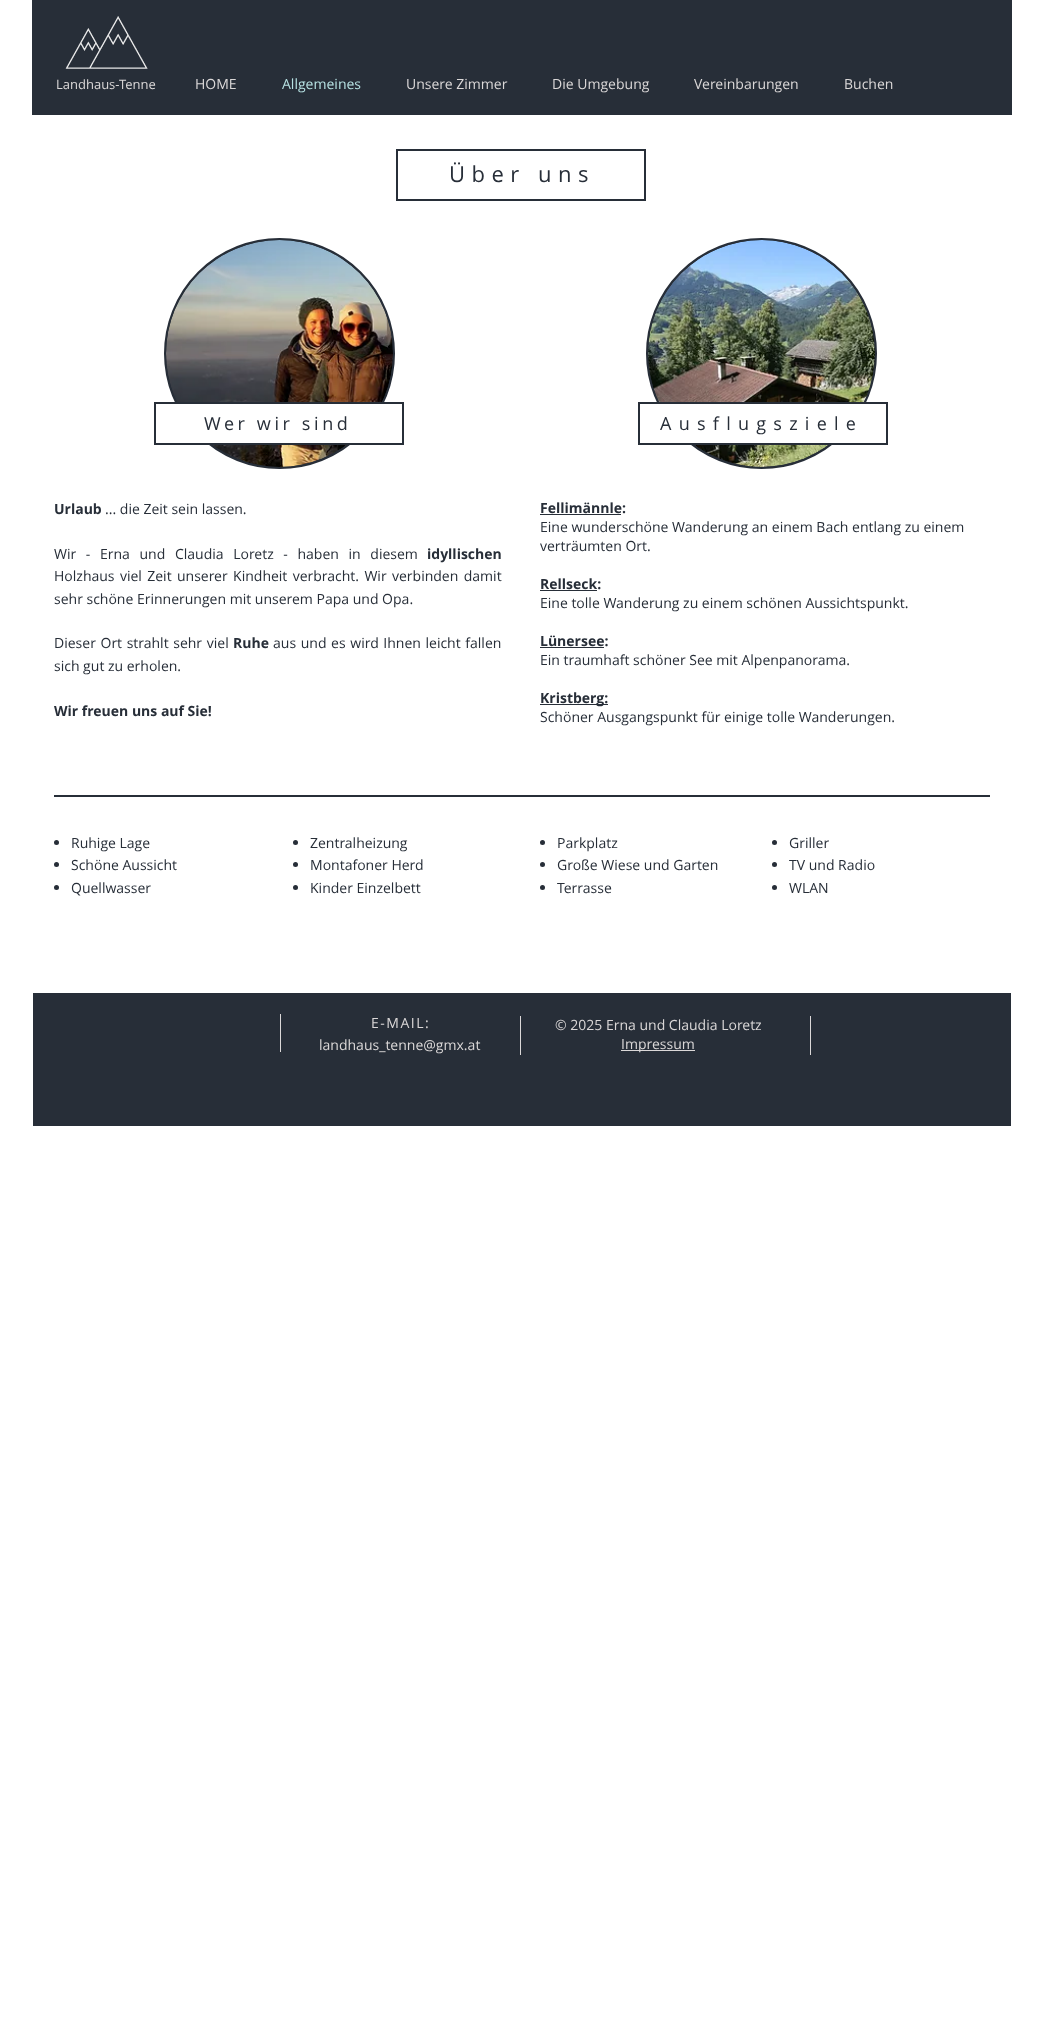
<!DOCTYPE html>
<meta charset="utf-8">
<style>body { margin: 0 } canvas { display: block }</style>
<canvas id="canvas" width="1043" height="2035"></canvas>
<img id="img1" src="img_01.png" hidden>
<img id="img2" src="img_02.png" hidden>
<img id="img3" src="img_03.png" hidden>
<script>
window.onload = function () {
	const canvas = document.getElementById("canvas");
	const ctx = canvas.getContext("2d");
	ctx.miterLimit = 4;
	ctx.fontKerning = "normal";
	function txt(s, x, y) {
		ctx.fillText(s, x, y);
	}
	function fill(x, y, w, h) {
		ctx.fillRect(x, y, w, h);
	}
	function img(id, x, y, w, h) {
		ctx.drawImage(document.getElementById(id), x, y, w, h);
	}

	ctx.fillStyle = "#FFFFFF";
	fill(0, 0, 1043, 2035);
	ctx.fillStyle = "#272E38";
	fill(32, 0, 980, 115);
	img("img1", 65, 16, 83, 53);
	ctx.strokeStyle = "#272E38";
	ctx.lineWidth = 2;
	ctx.strokeRect(397, 150, 248, 50);
	ctx.beginPath();
	ctx.arc(279.5, 353.5, 114.5, 0, Math.PI * 2);
	ctx.fill();
	ctx.stroke();
	img("img2", 166, 240, 227, 227);
	ctx.beginPath();
	ctx.arc(761.5, 353.5, 114.5, 0, Math.PI * 2);
	ctx.fill();
	ctx.stroke();
	img("img3", 648, 240, 227, 227);
	ctx.fillStyle = "#FFFFFF";
	fill(175, 404, 209, 39);
	ctx.strokeRect(155, 403, 248, 41);
	fill(657, 404, 209, 39);
	ctx.strokeRect(639, 403, 248, 41);
	ctx.fillStyle = "#272E38";
	fill(540, 514, 81, 1);
	fill(540, 590, 57, 1);
	fill(540, 647, 64, 1);
	fill(540, 704, 68, 1);
	fill(54, 795, 936, 2);
	ctx.beginPath();
	ctx.arc(56.5, 842.5, 2.5, 0, Math.PI * 2);
	ctx.fill();
	ctx.beginPath();
	ctx.arc(56.5, 864.5, 2.5, 0, Math.PI * 2);
	ctx.fill();
	ctx.beginPath();
	ctx.arc(56.5, 887.5, 2.5, 0, Math.PI * 2);
	ctx.fill();
	ctx.beginPath();
	ctx.arc(295.5, 842.5, 2.5, 0, Math.PI * 2);
	ctx.fill();
	ctx.beginPath();
	ctx.arc(295.5, 864.5, 2.5, 0, Math.PI * 2);
	ctx.fill();
	ctx.beginPath();
	ctx.arc(295.5, 887.5, 2.5, 0, Math.PI * 2);
	ctx.fill();
	ctx.beginPath();
	ctx.arc(542.5, 842.5, 2.5, 0, Math.PI * 2);
	ctx.fill();
	ctx.beginPath();
	ctx.arc(542.5, 864.5, 2.5, 0, Math.PI * 2);
	ctx.fill();
	ctx.beginPath();
	ctx.arc(542.5, 887.5, 2.5, 0, Math.PI * 2);
	ctx.fill();
	ctx.beginPath();
	ctx.arc(774.5, 842.5, 2.5, 0, Math.PI * 2);
	ctx.fill();
	ctx.beginPath();
	ctx.arc(774.5, 864.5, 2.5, 0, Math.PI * 2);
	ctx.fill();
	ctx.beginPath();
	ctx.arc(774.5, 887.5, 2.5, 0, Math.PI * 2);
	ctx.fill();
	fill(33, 993, 978, 133);
	ctx.fillStyle = "#DBD8D8";
	fill(280, 1014, 1, 38);
	fill(520, 1016, 1, 39);
	fill(621, 1050, 74, 1);
	fill(810, 1016, 1, 39);
	ctx.font = "13px Open Sans";
	txt("Landhaus-Tenne", 56, 89);
	ctx.font = "14px Open Sans";
	txt("HOME", 195, 89);
	ctx.fillStyle = "#B6E1E2";
	txt("Allgemeines", 282, 89);
	ctx.fillStyle = "#DBD8D8";
	txt("Unsere Zimmer", 406, 89);
	txt("Die Umgebung", 552, 89);
	txt("Vereinbarungen", 694, 89);
	txt("Buchen", 844, 89);
	ctx.letterSpacing = "6.5px";
	ctx.font = "22px Open Sans";
	ctx.fillStyle = "#272E38";
	txt("Über uns", 449, 182);
	ctx.letterSpacing = "3.6px";
	ctx.font = "18px Open Sans";
	txt("Wer wir sind", 204, 430);
	ctx.letterSpacing = "7.25px";
	txt("Ausflugsziele", 660, 430);
	ctx.letterSpacing = "0px";
	ctx.font = "bold 14px Open Sans";
	txt("Urlaub", 54, 514);
	ctx.font = "14px Open Sans";
	txt("... die Zeit sein lassen.", 105, 514);
	ctx.wordSpacing = "6px";
	txt("Wir - Erna und Claudia Loretz - haben in diesem", 54, 559);
	ctx.wordSpacing = "0px";
	ctx.font = "bold 14px Open Sans";
	txt("idyllischen", 427, 559);
	ctx.wordSpacing = "1.75px";
	ctx.font = "14px Open Sans";
	txt("Holzhaus viel Zeit unserer Kindheit verbracht. Wir verbinden damit", 54, 581);
	ctx.wordSpacing = "0px";
	txt("sehr schöne Erinnerungen mit unserem Papa und Opa.", 54, 604);
	ctx.wordSpacing = "1px";
	txt("Dieser Ort strahlt sehr viel", 54, 648);
	ctx.wordSpacing = "0px";
	ctx.font = "bold 14px Open Sans";
	txt("Ruhe", 233, 648);
	ctx.wordSpacing = "1px";
	ctx.font = "14px Open Sans";
	txt("aus und es wird Ihnen leicht fallen", 273, 648);
	ctx.wordSpacing = "0px";
	txt("sich gut zu erholen.", 54, 671);
	ctx.font = "bold 14px Open Sans";
	txt("Wir freuen uns auf Sie!", 54, 716);
	txt("Fellimännle:", 540, 513);
	ctx.font = "14px Open Sans";
	txt("Eine wunderschöne Wanderung an einem Bach entlang zu einem", 540, 532);
	txt("verträumten Ort.", 540, 551);
	ctx.font = "bold 14px Open Sans";
	txt("Rellseck:", 540, 589);
	ctx.font = "14px Open Sans";
	txt("Eine tolle Wanderung zu einem schönen Aussichtspunkt.", 540, 608);
	ctx.font = "bold 14px Open Sans";
	txt("Lünersee:", 540, 646);
	ctx.font = "14px Open Sans";
	txt("Ein traumhaft schöner See mit Alpenpanorama.", 540, 665);
	ctx.font = "bold 14px Open Sans";
	txt("Kristberg:", 540, 703);
	ctx.font = "14px Open Sans";
	txt("Schöner Ausgangspunkt für einige tolle Wanderungen.", 540, 722);
	txt("Ruhige Lage", 71, 848);
	txt("Schöne Aussicht", 71, 870);
	txt("Quellwasser", 71, 893);
	txt("Zentralheizung", 310, 848);
	txt("Montafoner Herd", 310, 870);
	txt("Kinder Einzelbett", 310, 893);
	txt("Parkplatz", 557, 848);
	txt("Große Wiese und Garten", 557, 870);
	txt("Terrasse", 557, 893);
	txt("Griller", 789, 848);
	txt("TV und Radio", 789, 870);
	txt("WLAN", 789, 893);
	ctx.letterSpacing = "1.5px";
	ctx.fillStyle = "#DBD8D8";
	txt("E-MAIL:", 371, 1028);
	ctx.letterSpacing = "0px";
	txt("landhaus_tenne@gmx.at", 319, 1050);
	txt("© 2025 Erna und Claudia Loretz", 555, 1030);
	txt("Impressum", 621, 1049);
};
</script>
